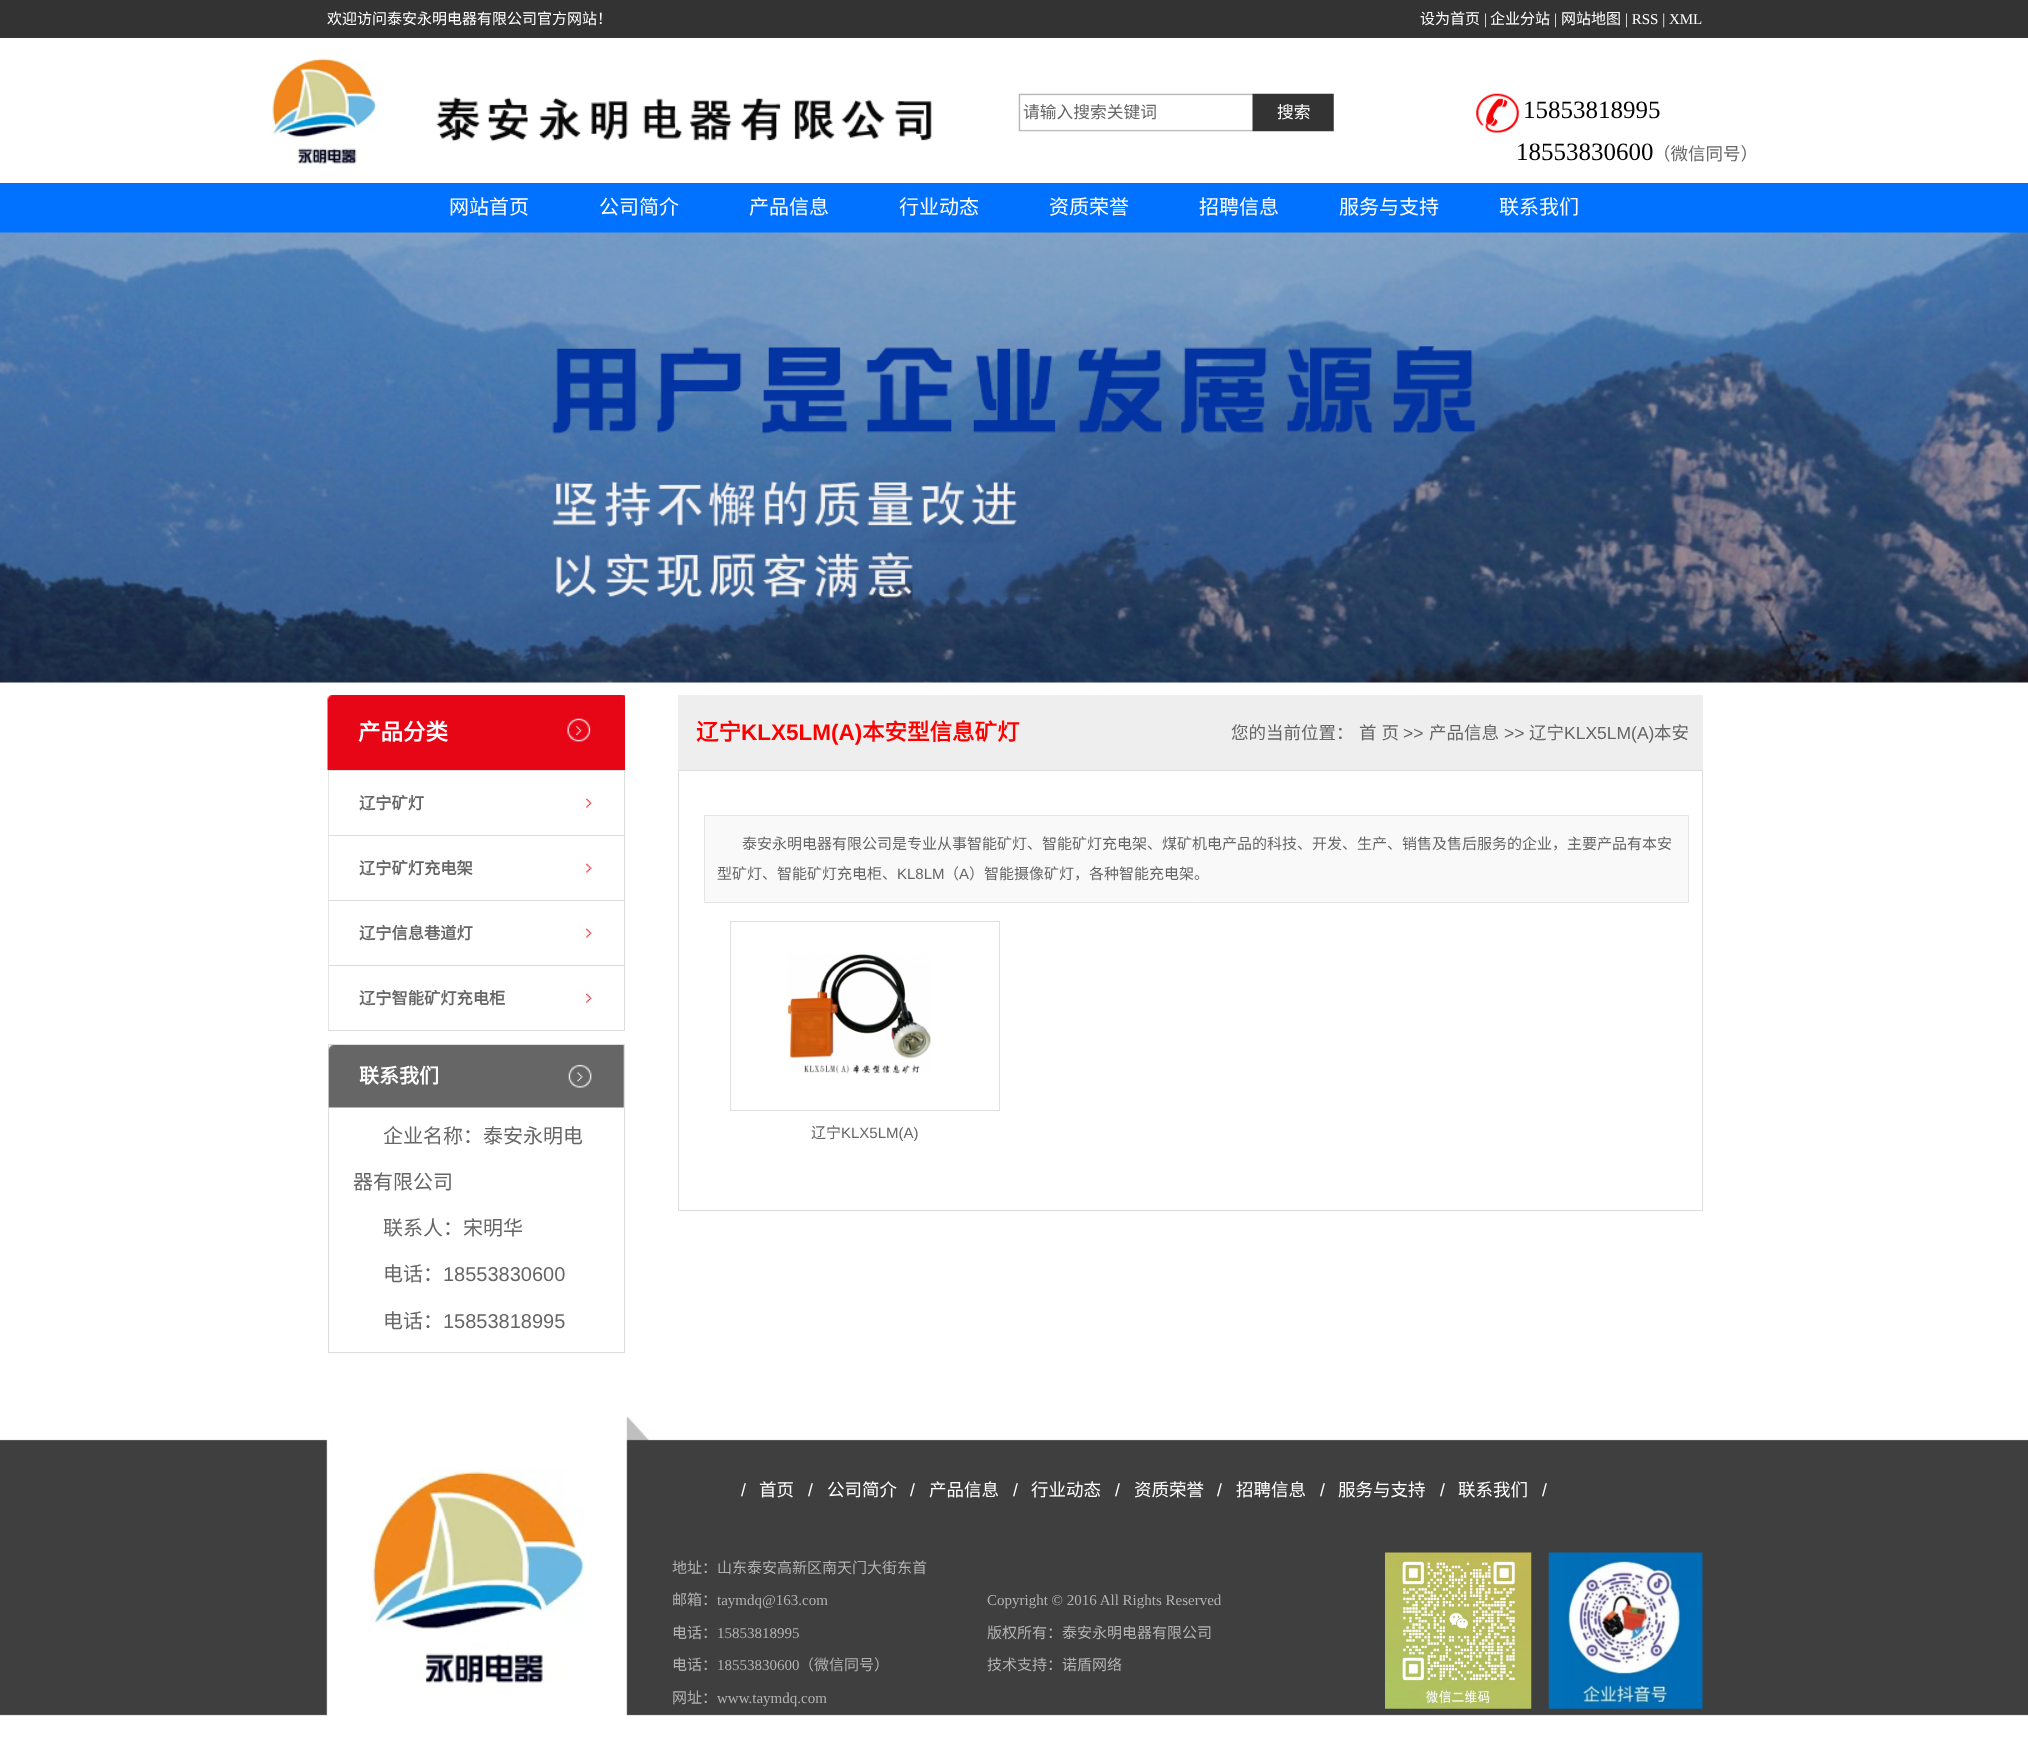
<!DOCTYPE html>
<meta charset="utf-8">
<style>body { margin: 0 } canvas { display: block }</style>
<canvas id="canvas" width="2028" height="1744"></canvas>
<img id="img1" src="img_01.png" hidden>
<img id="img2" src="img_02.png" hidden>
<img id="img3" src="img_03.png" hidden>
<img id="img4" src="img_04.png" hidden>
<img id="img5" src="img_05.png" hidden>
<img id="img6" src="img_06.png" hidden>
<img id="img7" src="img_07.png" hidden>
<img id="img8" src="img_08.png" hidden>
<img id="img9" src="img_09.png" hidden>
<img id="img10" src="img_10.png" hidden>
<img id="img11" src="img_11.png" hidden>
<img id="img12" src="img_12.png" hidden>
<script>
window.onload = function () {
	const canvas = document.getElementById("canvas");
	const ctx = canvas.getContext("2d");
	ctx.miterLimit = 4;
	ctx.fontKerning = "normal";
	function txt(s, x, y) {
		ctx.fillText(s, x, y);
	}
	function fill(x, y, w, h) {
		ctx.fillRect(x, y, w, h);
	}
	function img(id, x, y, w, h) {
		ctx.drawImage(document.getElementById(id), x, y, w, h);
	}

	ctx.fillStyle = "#FFFFFF";
	fill(0, 0, 2028, 1744);
	ctx.fillStyle = "#333333";
	fill(0, 0, 2028, 38);
	img("img1", 271, 58, 661, 106);
	img("img2", 1018, 93, 316, 39);
	img("img3", 1476, 93, 43, 40);
	ctx.fillStyle = "#0072FF";
	fill(0, 183, 2028, 50);
	img("img4", 0, 232, 2028, 451);
	img("img5", 327, 695, 298, 75);
	ctx.fillStyle = "#DDDDDD";
	fill(328, 770, 297, 1);
	fill(624, 770, 1, 261);
	fill(328, 770, 1, 261);
	img("img6", 328, 771, 268, 64);
	fill(329, 835, 295, 1);
	img("img6", 328, 836, 268, 64);
	fill(329, 900, 295, 1);
	img("img6", 328, 901, 268, 64);
	fill(329, 965, 295, 1);
	img("img6", 328, 966, 268, 64);
	fill(329, 1030, 295, 1);
	ctx.strokeStyle = "#DDDDDD";
	ctx.strokeRect(328.5, 1044.5, 296, 308);
	img("img7", 328, 1045, 296, 63);
	ctx.fillStyle = "#EEEEEE";
	fill(678, 695, 1025, 75);
	ctx.strokeRect(678.5, 770.5, 1024, 440);
	ctx.fillStyle = "#F9F9F9";
	ctx.beginPath();
	ctx.rect(704.5, 815.5, 984, 87);
	ctx.fill();
	ctx.strokeStyle = "#E5E5E5";
	ctx.stroke();
	ctx.strokeStyle = "#E0E1DC";
	ctx.strokeRect(730.5, 921.5, 269, 189);
	img("img8", 787, 954, 144, 120);
	img("img9", 0, 1417, 2028, 299);
	img("img10", 370, 1469, 215, 214);
	img("img11", 1385, 1552, 147, 157);
	img("img12", 1548, 1552, 155, 157);
	ctx.font = "15px Noto Sans CJK SC";
	ctx.fillStyle = "#FFFFFF";
	txt("欢迎访问泰安永明电器有限公司官方网站！", 327, 24);
	txt("设为首页", 1420, 24);
	ctx.font = "15px Liberation Serif";
	txt("|", 1484, 24);
	ctx.font = "15px Noto Sans CJK SC";
	txt("企业分站", 1490, 24);
	ctx.font = "15px Liberation Serif";
	txt("|", 1554, 24);
	ctx.font = "15px Noto Sans CJK SC";
	txt("网站地图", 1561, 24);
	ctx.font = "15px Liberation Serif";
	txt("| RSS | XML", 1625, 24);
	ctx.font = "16.75px Noto Sans CJK SC";
	ctx.fillStyle = "#666666";
	txt("请输入搜索关键词", 1023, 118);
	ctx.fillStyle = "#FFFFFF";
	txt("搜索", 1277, 118);
	ctx.font = "25px Liberation Serif";
	ctx.fillStyle = "#000000";
	txt("15853818995", 1523, 118);
	txt("18553830600", 1516, 160);
	ctx.font = "17.5px Noto Sans CJK SC";
	ctx.fillStyle = "#666666";
	txt("（微信同号）", 1653, 160);
	ctx.font = "20px Noto Sans CJK SC";
	ctx.fillStyle = "#FFFFFF";
	txt("网站首页", 449, 214);
	txt("公司简介", 599, 214);
	txt("产品信息", 749, 214);
	txt("行业动态", 899, 214);
	txt("资质荣誉", 1049, 214);
	txt("招聘信息", 1199, 214);
	txt("服务与支持", 1339, 214);
	txt("联系我们", 1499, 214);
	ctx.font = "bold 22.5px Noto Sans CJK SC";
	txt("产品分类", 358, 740);
	ctx.font = "bold 16.25px Noto Sans CJK SC";
	ctx.fillStyle = "#666666";
	txt("辽宁矿灯", 359, 809);
	txt("辽宁矿灯充电架", 359, 874);
	txt("辽宁信息巷道灯", 359, 939);
	txt("辽宁智能矿灯充电柜", 359, 1004);
	ctx.font = "bold 20px Noto Sans CJK SC";
	ctx.fillStyle = "#FFFFFF";
	txt("联系我们", 359, 1083);
	ctx.font = "20px Noto Sans CJK SC";
	ctx.fillStyle = "#666666";
	txt("企业名称：泰安永明电", 383, 1143);
	txt("器有限公司", 353, 1189);
	txt("联系人：宋明华", 383, 1235);
	txt("电话：", 383, 1281);
	ctx.font = "20px Liberation Sans";
	txt("18553830600", 443, 1281);
	ctx.font = "20px Noto Sans CJK SC";
	txt("电话：", 383, 1328);
	ctx.font = "20px Liberation Sans";
	txt("15853818995", 443, 1328);
	ctx.font = "bold 22.5px Noto Sans CJK SC";
	ctx.fillStyle = "#FF0000";
	txt("辽宁", 696, 740);
	ctx.font = "bold 22.5px Liberation Sans";
	txt("KLX5LM(A)", 741, 740);
	ctx.font = "bold 22.5px Noto Sans CJK SC";
	txt("本安型信息矿灯", 862, 740);
	ctx.font = "17.5px Noto Sans CJK SC";
	ctx.fillStyle = "#666666";
	txt("您的当前位置：", 1231, 739);
	ctx.wordSpacing = "1px";
	txt("首 页", 1359, 739);
	ctx.wordSpacing = "0px";
	ctx.font = "17.5px Liberation Sans";
	txt(">>", 1403, 739);
	ctx.font = "17.5px Noto Sans CJK SC";
	txt("产品信息", 1429, 739);
	ctx.font = "17.5px Liberation Sans";
	txt(">>", 1504, 739);
	ctx.font = "17.5px Noto Sans CJK SC";
	txt("辽宁", 1529, 739);
	ctx.font = "17.5px Liberation Sans";
	txt("KLX5LM(A)", 1564, 739);
	ctx.font = "17.5px Noto Sans CJK SC";
	txt("本安", 1654, 739);
	ctx.font = "15px Noto Sans CJK SC";
	txt("泰安永明电器有限公司是专业从事智能矿灯、智能矿灯充电架、煤矿机电产品的科技、开发、生产、销售及售后服务的企业，主要产品有本安", 742, 849);
	txt("型矿灯、智能矿灯充电柜、", 717, 879);
	ctx.font = "15px Liberation Sans";
	txt("KL8LM", 897, 879);
	ctx.font = "15px Noto Sans CJK SC";
	txt("（", 944, 879);
	ctx.font = "15px Liberation Sans";
	txt("A", 959, 879);
	ctx.font = "15px Noto Sans CJK SC";
	txt("）智能摄像矿灯，各种智能充电架。", 969, 879);
	txt("辽宁", 811, 1138);
	ctx.font = "15px Liberation Sans";
	txt("KLX5LM(A)", 841, 1138);
	ctx.font = "17.5px Liberation Sans";
	ctx.fillStyle = "#FFFFFF";
	txt("/", 741, 1496);
	ctx.font = "17.5px Noto Sans CJK SC";
	txt("首页", 759, 1496);
	ctx.font = "17.5px Liberation Sans";
	txt("/", 808, 1496);
	ctx.font = "17.5px Noto Sans CJK SC";
	txt("公司简介", 827, 1496);
	ctx.font = "17.5px Liberation Sans";
	txt("/", 910, 1496);
	ctx.font = "17.5px Noto Sans CJK SC";
	txt("产品信息", 929, 1496);
	ctx.font = "17.5px Liberation Sans";
	txt("/", 1013, 1496);
	ctx.font = "17.5px Noto Sans CJK SC";
	txt("行业动态", 1031, 1496);
	ctx.font = "17.5px Liberation Sans";
	txt("/", 1115, 1496);
	ctx.font = "17.5px Noto Sans CJK SC";
	txt("资质荣誉", 1134, 1496);
	ctx.font = "17.5px Liberation Sans";
	txt("/", 1217, 1496);
	ctx.font = "17.5px Noto Sans CJK SC";
	txt("招聘信息", 1236, 1496);
	ctx.font = "17.5px Liberation Sans";
	txt("/", 1320, 1496);
	ctx.font = "17.5px Noto Sans CJK SC";
	txt("服务与支持", 1338, 1496);
	ctx.font = "17.5px Liberation Sans";
	txt("/", 1440, 1496);
	ctx.font = "17.5px Noto Sans CJK SC";
	txt("联系我们", 1458, 1496);
	ctx.font = "17.5px Liberation Sans";
	txt("/", 1542, 1496);
	ctx.font = "15px Noto Sans CJK SC";
	ctx.fillStyle = "#B2B2B2";
	txt("地址：山东泰安高新区南天门大街东首", 672, 1573);
	txt("邮箱：", 672, 1605);
	ctx.font = "15px Liberation Serif";
	txt("taymdq@163.com", 717, 1605);
	ctx.font = "15px Noto Sans CJK SC";
	txt("电话：", 672, 1638);
	ctx.font = "15px Liberation Serif";
	txt("15853818995", 717, 1638);
	ctx.font = "15px Noto Sans CJK SC";
	txt("电话：", 672, 1670);
	ctx.font = "15px Liberation Serif";
	txt("18553830600", 717, 1670);
	ctx.font = "15px Noto Sans CJK SC";
	txt("（微信同号）", 799, 1670);
	txt("网址：", 672, 1703);
	ctx.font = "15px Liberation Serif";
	txt("www.taymdq.com", 717, 1703);
	txt("Copyright © 2016 All Rights Reserved", 987, 1605);
	ctx.font = "15px Noto Sans CJK SC";
	txt("版权所有：泰安永明电器有限公司", 987, 1638);
	txt("技术支持：诺盾网络", 987, 1670);
};
</script>
